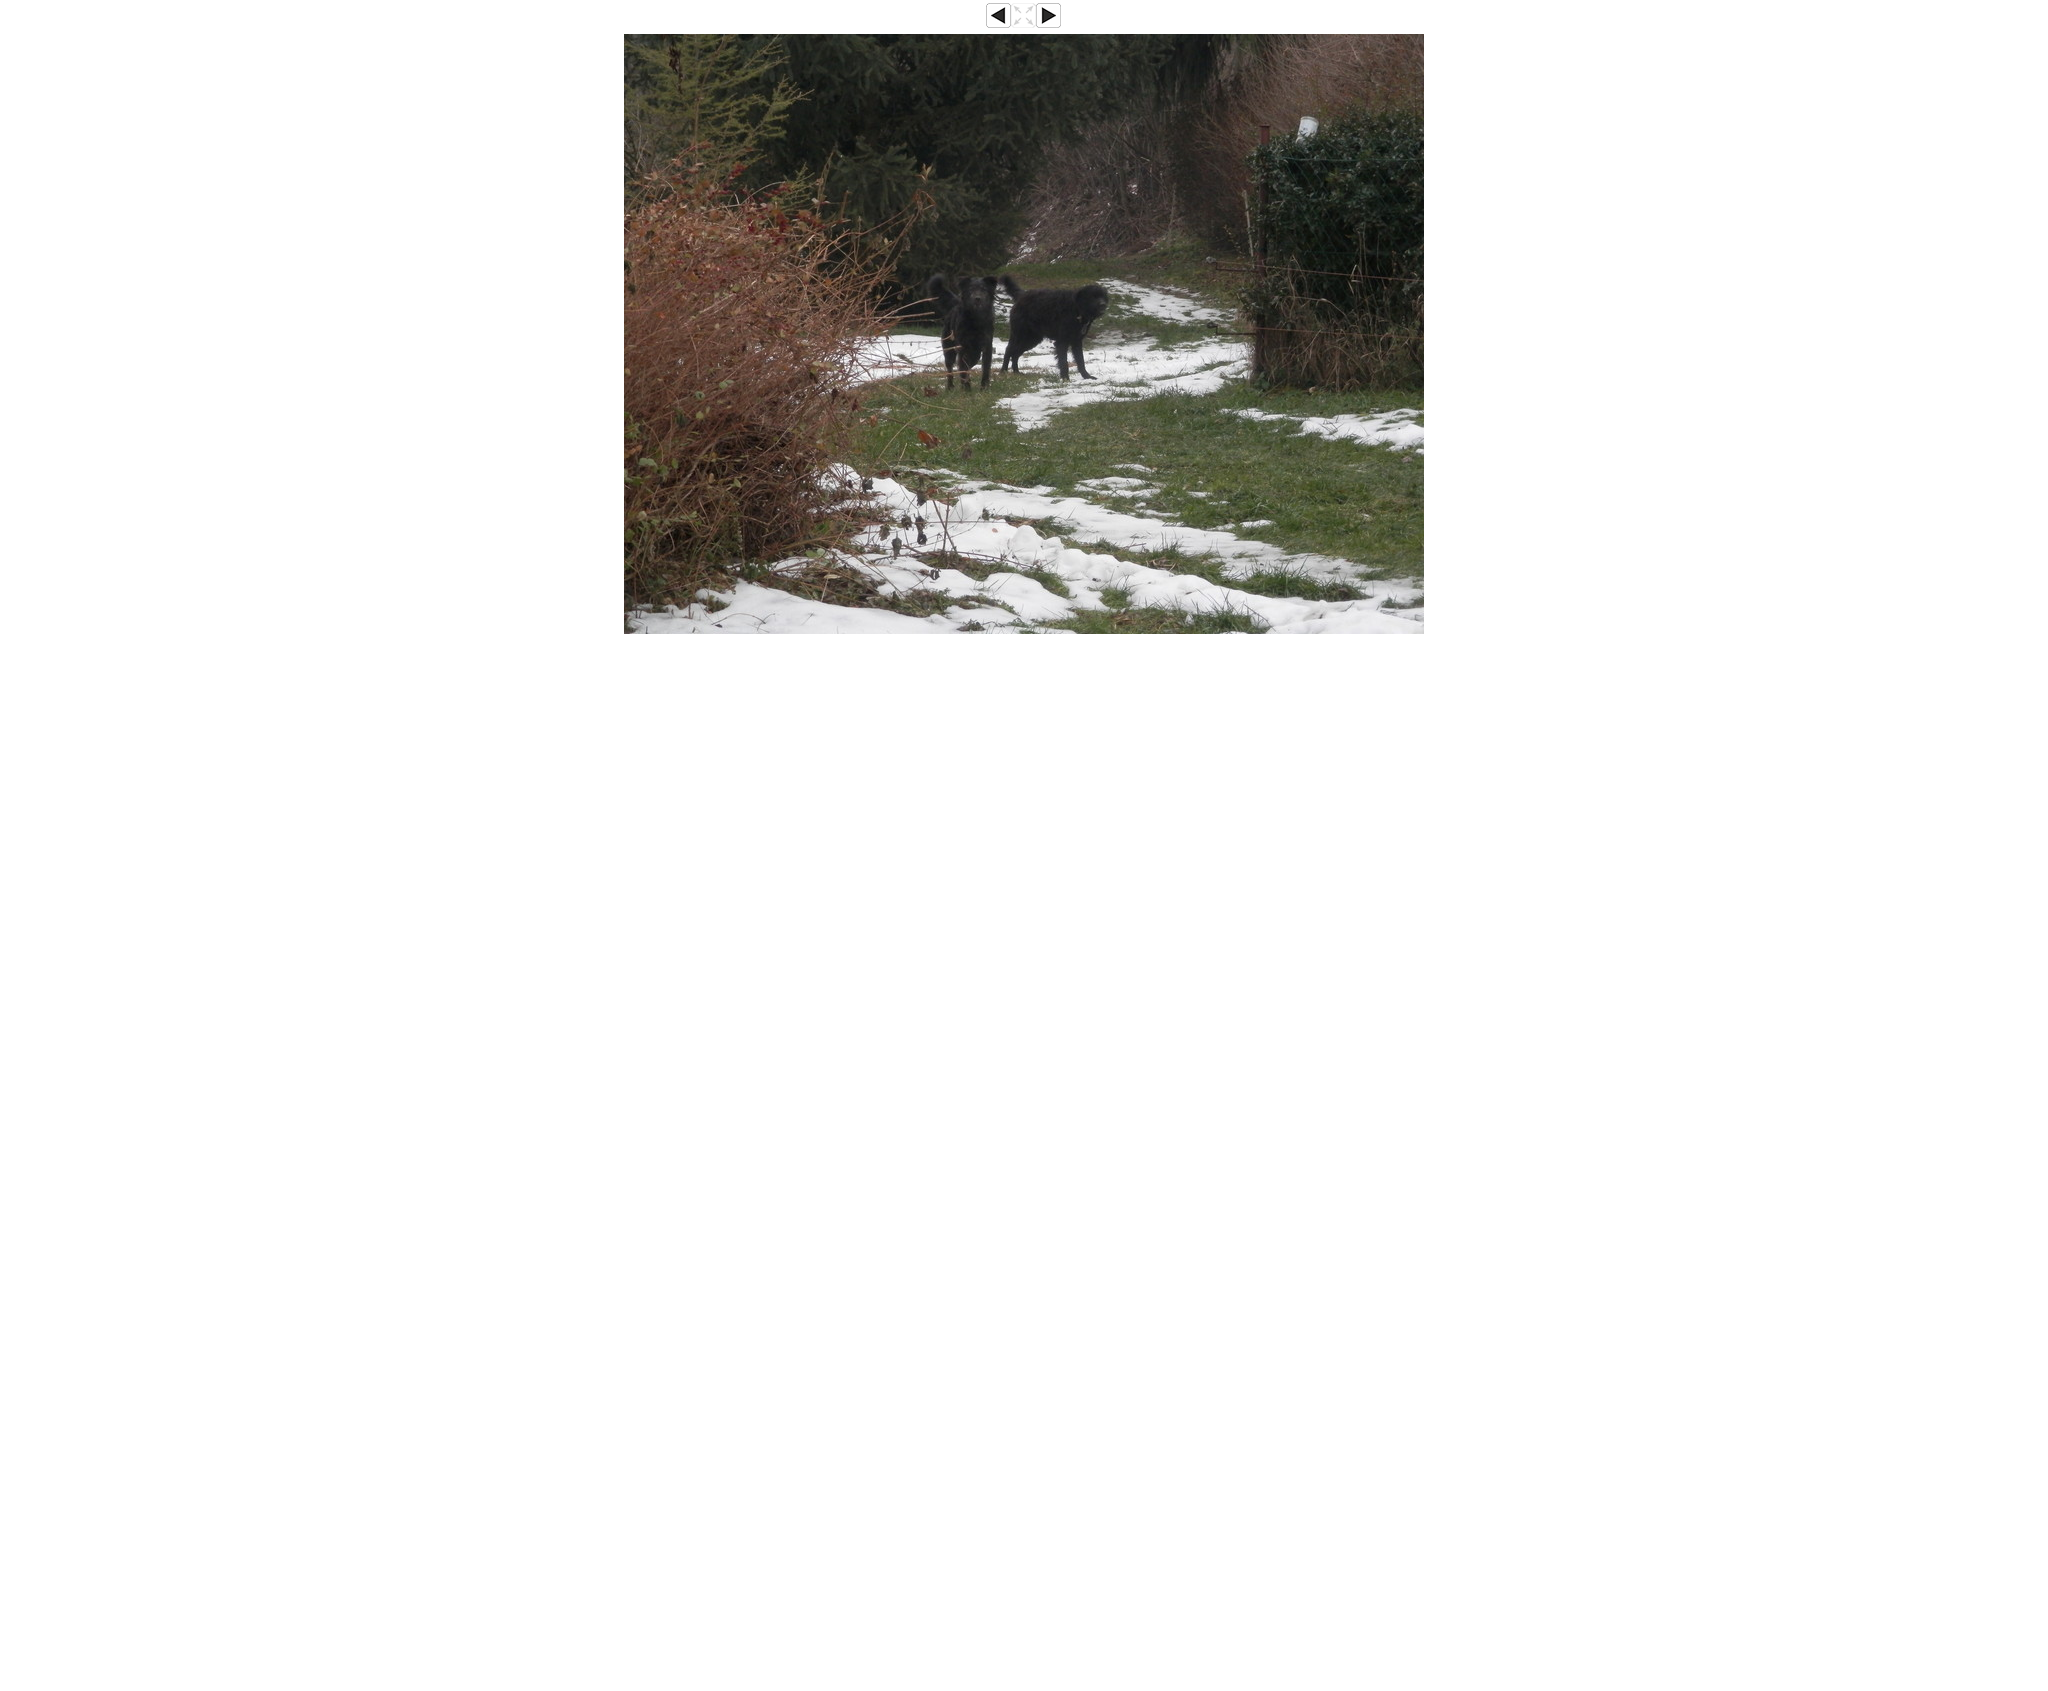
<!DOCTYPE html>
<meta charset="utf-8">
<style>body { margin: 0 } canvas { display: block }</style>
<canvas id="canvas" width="2048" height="1691"></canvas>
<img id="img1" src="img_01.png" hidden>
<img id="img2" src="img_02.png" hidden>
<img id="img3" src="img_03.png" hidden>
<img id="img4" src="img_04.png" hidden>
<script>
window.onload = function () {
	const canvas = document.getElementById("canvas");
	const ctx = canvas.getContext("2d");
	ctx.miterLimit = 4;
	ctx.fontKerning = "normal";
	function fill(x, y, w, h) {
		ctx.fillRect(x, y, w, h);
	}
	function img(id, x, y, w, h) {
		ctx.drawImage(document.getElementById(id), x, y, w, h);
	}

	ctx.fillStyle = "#FFFFFF";
	fill(0, 0, 2048, 1691);
	img("img1", 986, 3, 25, 25);
	img("img2", 1011, 3, 25, 25);
	img("img3", 1036, 3, 25, 25);
	img("img4", 624, 34, 800, 600);
};
</script>
